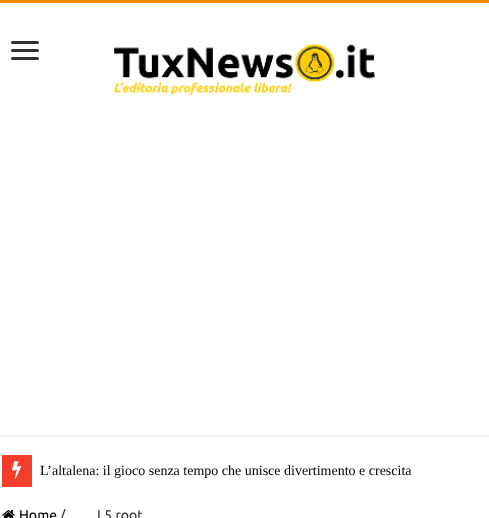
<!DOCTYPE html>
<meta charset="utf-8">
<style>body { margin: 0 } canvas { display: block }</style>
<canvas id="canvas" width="489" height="518"></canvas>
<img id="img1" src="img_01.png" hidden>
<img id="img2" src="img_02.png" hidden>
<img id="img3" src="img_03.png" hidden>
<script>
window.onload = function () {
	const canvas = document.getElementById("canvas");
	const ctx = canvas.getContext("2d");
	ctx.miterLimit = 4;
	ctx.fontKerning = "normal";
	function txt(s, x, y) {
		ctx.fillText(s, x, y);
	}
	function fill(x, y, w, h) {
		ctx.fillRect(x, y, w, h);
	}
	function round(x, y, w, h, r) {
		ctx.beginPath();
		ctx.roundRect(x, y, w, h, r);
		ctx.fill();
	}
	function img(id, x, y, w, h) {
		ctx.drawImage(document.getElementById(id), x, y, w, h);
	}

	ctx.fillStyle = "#FFFFFF";
	fill(0, 0, 489, 518);
	ctx.save();
	ctx.beginPath();
	ctx.rect(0, 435, 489, 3);
	ctx.clip();
	ctx.fillStyle = "#CACACA";
	ctx.filter = "blur(1.5px)";
	ctx.beginPath();
	ctx.rect(0, 0, 489, 435);
	ctx.fill();
	ctx.filter = "none";
	ctx.restore();
	ctx.fillStyle = "#FF8C00";
	fill(0, 0, 489, 3);
	ctx.fillStyle = "#333333";
	round(11, 41, 28, 3, 1.5);
	round(11, 49, 28, 3, 1.5);
	round(11, 57, 28, 3, 1.5);
	img("img1", 114, 44, 261, 51);
	ctx.fillStyle = "#F43D2A";
	fill(2, 455, 30, 32);
	img("img2", 12, 461, 10, 18);
	img("img3", 2, 510, 13, 8);
	ctx.font = "14px Liberation Serif";
	ctx.fillStyle = "#000000";
	txt("L’altalena: il gioco senza tempo che unisce divertimento e crescita", 40, 475);
	ctx.font = "14px Ubuntu";
	txt("Home", 19, 520);
	ctx.fillStyle = "#333333";
	txt("/", 60, 520);
	txt("L5 root", 97, 520);
};
</script>
